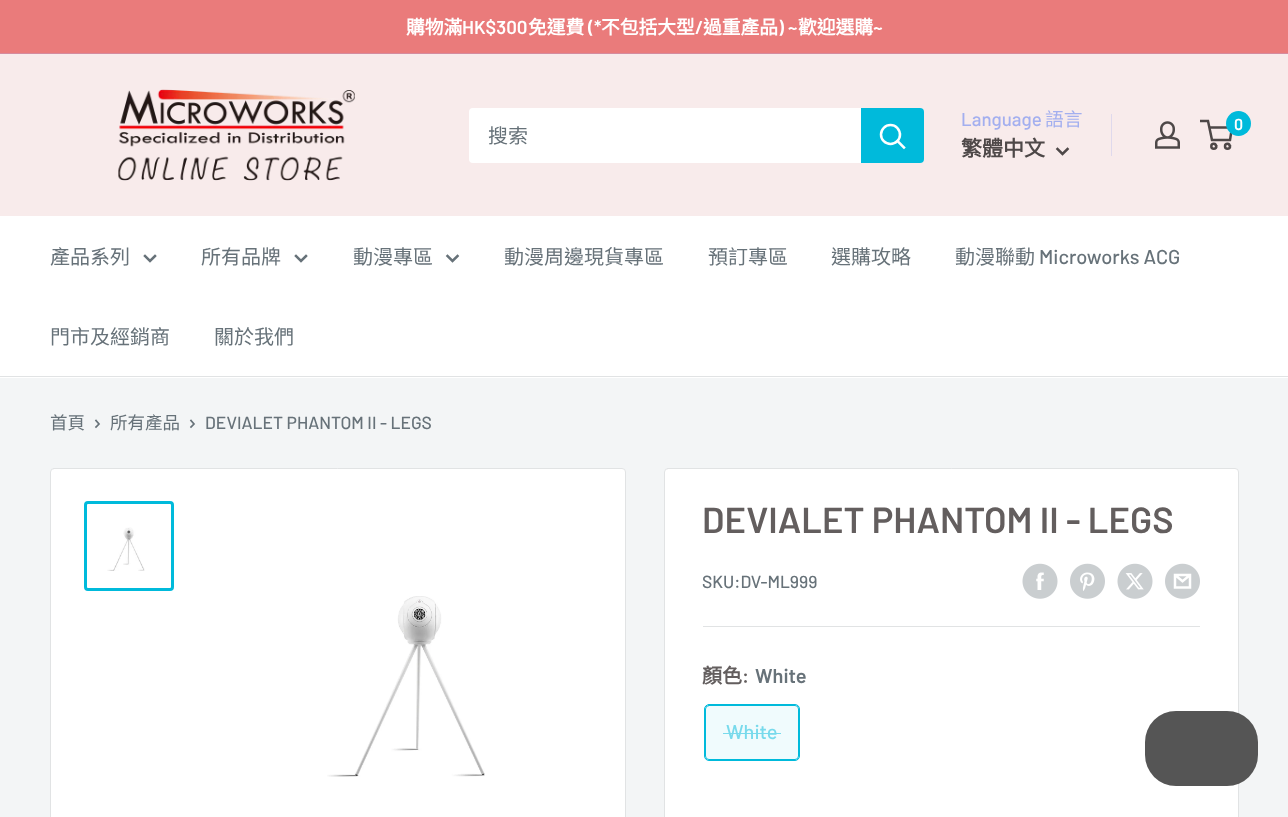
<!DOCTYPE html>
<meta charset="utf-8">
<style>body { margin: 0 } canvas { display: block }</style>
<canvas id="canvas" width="1288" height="817"></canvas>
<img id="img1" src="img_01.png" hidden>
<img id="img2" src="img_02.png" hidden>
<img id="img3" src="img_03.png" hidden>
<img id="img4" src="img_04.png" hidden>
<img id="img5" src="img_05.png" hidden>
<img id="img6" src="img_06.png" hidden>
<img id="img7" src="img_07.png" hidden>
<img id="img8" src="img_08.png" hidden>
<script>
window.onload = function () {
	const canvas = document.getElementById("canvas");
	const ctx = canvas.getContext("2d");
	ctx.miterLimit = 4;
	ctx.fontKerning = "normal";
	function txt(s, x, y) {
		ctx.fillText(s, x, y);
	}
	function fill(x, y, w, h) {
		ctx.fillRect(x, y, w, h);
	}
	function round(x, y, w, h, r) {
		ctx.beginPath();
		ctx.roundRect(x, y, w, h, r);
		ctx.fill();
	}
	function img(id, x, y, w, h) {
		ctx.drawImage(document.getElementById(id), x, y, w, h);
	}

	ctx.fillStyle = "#F3F5F6";
	fill(0, 0, 1288, 817);
	ctx.fillStyle = "#EA7B7B";
	fill(0, 0, 1288, 53);
	ctx.fillStyle = "#D58B9E";
	fill(0, 53, 1288, 1);
	ctx.fillStyle = "#F8EBEB";
	fill(0, 54, 1288, 162);
	img("img1", 118, 89, 237, 92);
	ctx.fillStyle = "#FFFFFF";
	round(469, 108, 455, 55, 4);
	ctx.fillStyle = "#00BADB";
	ctx.beginPath();
	ctx.roundRect(861, 108, 63, 55, [0, 4, 4, 0]);
	ctx.fill();
	ctx.beginPath();
	ctx.moveTo(904, 147.5);
	ctx.lineTo(897.5, 141);
	ctx.strokeStyle = "#FFFFFF";
	ctx.lineWidth = 2.5;
	ctx.lineCap = "square";
	ctx.stroke();
	ctx.beginPath();
	ctx.arc(890.5, 134.5, 9.5, 0, Math.PI * 2);
	ctx.stroke();
	ctx.beginPath();
	ctx.moveTo(1067.5, 149);
	ctx.lineTo(1062.5, 154);
	ctx.lineTo(1057.5, 149);
	ctx.strokeStyle = "#4E4848";
	ctx.stroke();
	ctx.fillStyle = "#DFD9EC";
	fill(1111, 114, 1, 42);
	img("img2", 1155, 121, 25, 28);
	ctx.beginPath();
	ctx.arc(1213.8, 146.2, 2.5, 0, Math.PI * 2);
	ctx.stroke();
	ctx.beginPath();
	ctx.arc(1227.5, 146.2, 2.5, 0, Math.PI * 2);
	ctx.stroke();
	ctx.beginPath();
	ctx.moveTo(1209, 127.5);
	ctx.lineTo(1232, 127.5);
	ctx.lineTo(1230, 140);
	ctx.lineTo(1212, 140);
	ctx.lineTo(1208, 121);
	ctx.lineTo(1200, 121);
	ctx.lineCap = "butt";
	ctx.stroke();
	ctx.fillStyle = "#00BADB";
	ctx.beginPath();
	ctx.arc(1238.5, 123.5, 12.5, 0, Math.PI * 2);
	ctx.fill();
	ctx.fillStyle = "#FFFFFF";
	fill(0, 216, 1288, 162);
	ctx.fillStyle = "#E1E3E4";
	fill(0, 376, 1288, 1);
	ctx.beginPath();
	ctx.moveTo(155, 256);
	ctx.lineTo(150, 261);
	ctx.lineTo(145, 256);
	ctx.strokeStyle = "#677279";
	ctx.lineCap = "square";
	ctx.stroke();
	ctx.beginPath();
	ctx.moveTo(306, 256);
	ctx.lineTo(301, 261);
	ctx.lineTo(296, 256);
	ctx.stroke();
	ctx.beginPath();
	ctx.moveTo(457.5, 256);
	ctx.lineTo(452.5, 261);
	ctx.lineTo(447.5, 256);
	ctx.stroke();
	ctx.beginPath();
	ctx.moveTo(96, 420.5);
	ctx.lineTo(99, 424);
	ctx.lineTo(96, 427);
	ctx.lineWidth = 1.7;
	ctx.stroke();
	ctx.beginPath();
	ctx.moveTo(191, 420.5);
	ctx.lineTo(194, 424);
	ctx.lineTo(191, 427);
	ctx.stroke();
	ctx.fillStyle = "#FFFFFF";
	ctx.beginPath();
	ctx.roundRect(50.5, 468.5, 575, 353, 3.5);
	ctx.fill();
	ctx.strokeStyle = "#E1E3E4";
	ctx.lineWidth = 1;
	ctx.stroke();
	ctx.beginPath();
	ctx.roundRect(85.5, 502.5, 87, 87, 2.5);
	ctx.strokeStyle = "#00BADB";
	ctx.lineWidth = 3;
	ctx.stroke();
	img("img3", 107, 527, 38, 44);
	img("img4", 327, 596, 158, 181);
	ctx.beginPath();
	ctx.roundRect(664.5, 468.5, 574, 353, 3.5);
	ctx.fill();
	ctx.strokeStyle = "#E1E3E4";
	ctx.lineWidth = 1;
	ctx.stroke();
	img("img5", 1022, 563, 36, 36);
	img("img6", 1070, 563, 35, 36);
	img("img7", 1117, 563, 36, 36);
	img("img8", 1165, 563, 35, 36);
	ctx.fillStyle = "#E1E3E4";
	fill(703, 626, 497, 1);
	ctx.beginPath();
	ctx.roundRect(704.5, 704.5, 95, 56, 4.5);
	ctx.strokeStyle = "#00BADB";
	ctx.stroke();
	ctx.fillStyle = "rgba(0, 186, 219, 0.06)";
	fill(705, 705, 94, 55);
	ctx.beginPath();
	ctx.roundRect(705.5, 705.5, 93, 54, 3.5);
	ctx.stroke();
	ctx.fillStyle = "#78DAEC";
	fill(723, 733, 58, 1);
	ctx.fillStyle = "#555555";
	round(1145, 711, 113, 75, 31);
	ctx.font = "bold 18.75px Noto Sans CJK TC";
	ctx.fillStyle = "#FFFFFF";
	txt("購物滿", 406, 34);
	ctx.font = "600 18.75px Barlow";
	txt("HK$300", 462, 34);
	ctx.font = "bold 18.75px Noto Sans CJK TC";
	txt("免運費", 528, 34);
	ctx.font = "600 18.75px Barlow";
	txt("(*", 588, 34);
	ctx.font = "bold 18.75px Noto Sans CJK TC";
	txt("不包括大型", 601, 34);
	ctx.font = "600 18.75px Barlow";
	txt("/", 695, 34);
	ctx.font = "bold 18.75px Noto Sans CJK TC";
	txt("過重產品", 703, 34);
	ctx.font = "600 18.75px Barlow";
	txt(") ~", 778, 34);
	ctx.font = "bold 18.75px Noto Sans CJK TC";
	txt("歡迎選購", 798, 34);
	ctx.font = "600 18.75px Barlow";
	txt("~", 873, 34);
	ctx.font = "20px Noto Sans CJK TC";
	ctx.fillStyle = "#677279";
	txt("搜索", 488, 143);
	ctx.font = "500 18.75px Barlow";
	ctx.fillStyle = "#A3AFEF";
	txt("Language", 961, 126);
	ctx.font = "18.75px Noto Sans CJK TC";
	txt("語言", 1045, 126);
	ctx.font = "bold 21px Noto Sans CJK TC";
	ctx.fillStyle = "#4E4848";
	txt("繁體中文", 961, 156);
	ctx.font = "600 16px Barlow";
	ctx.fillStyle = "#FFFFFF";
	txt("0", 1234, 130);
	ctx.font = "20px Noto Sans CJK TC";
	ctx.fillStyle = "#677279";
	txt("產品系列", 50, 264);
	txt("所有品牌", 201, 264);
	txt("動漫專區", 353, 264);
	txt("動漫周邊現貨專區", 504, 264);
	txt("預訂專區", 708, 264);
	txt("選購攻略", 831, 264);
	txt("動漫聯動", 955, 264);
	ctx.font = "500 20px Barlow";
	txt("Microworks ACG", 1039, 264);
	ctx.font = "20px Noto Sans CJK TC";
	txt("門市及經銷商", 50, 344);
	txt("關於我們", 214, 344);
	ctx.font = "17.5px Noto Sans CJK TC";
	txt("首頁", 50, 429);
	txt("所有產品", 110, 429);
	ctx.font = "500 17.5px Barlow";
	txt("DEVIALET PHANTOM II - LEGS", 205, 429);
	ctx.font = "600 36.25px Barlow";
	ctx.fillStyle = "#635E5E";
	txt("DEVIALET PHANTOM II - LEGS", 702, 533);
	ctx.font = "500 17.5px Barlow";
	ctx.fillStyle = "#677279";
	txt("SKU:DV-ML999", 702, 588);
	ctx.font = "bold 20px Noto Sans CJK TC";
	ctx.fillStyle = "#635E5E";
	txt("顏色", 702, 683);
	ctx.font = "600 20px Barlow";
	txt(":", 742, 683);
	ctx.fillStyle = "#677279";
	txt("White", 755, 683);
	ctx.font = "500 20px Barlow";
	ctx.fillStyle = "#78DAEC";
	txt("White", 726, 739);
};
</script>
